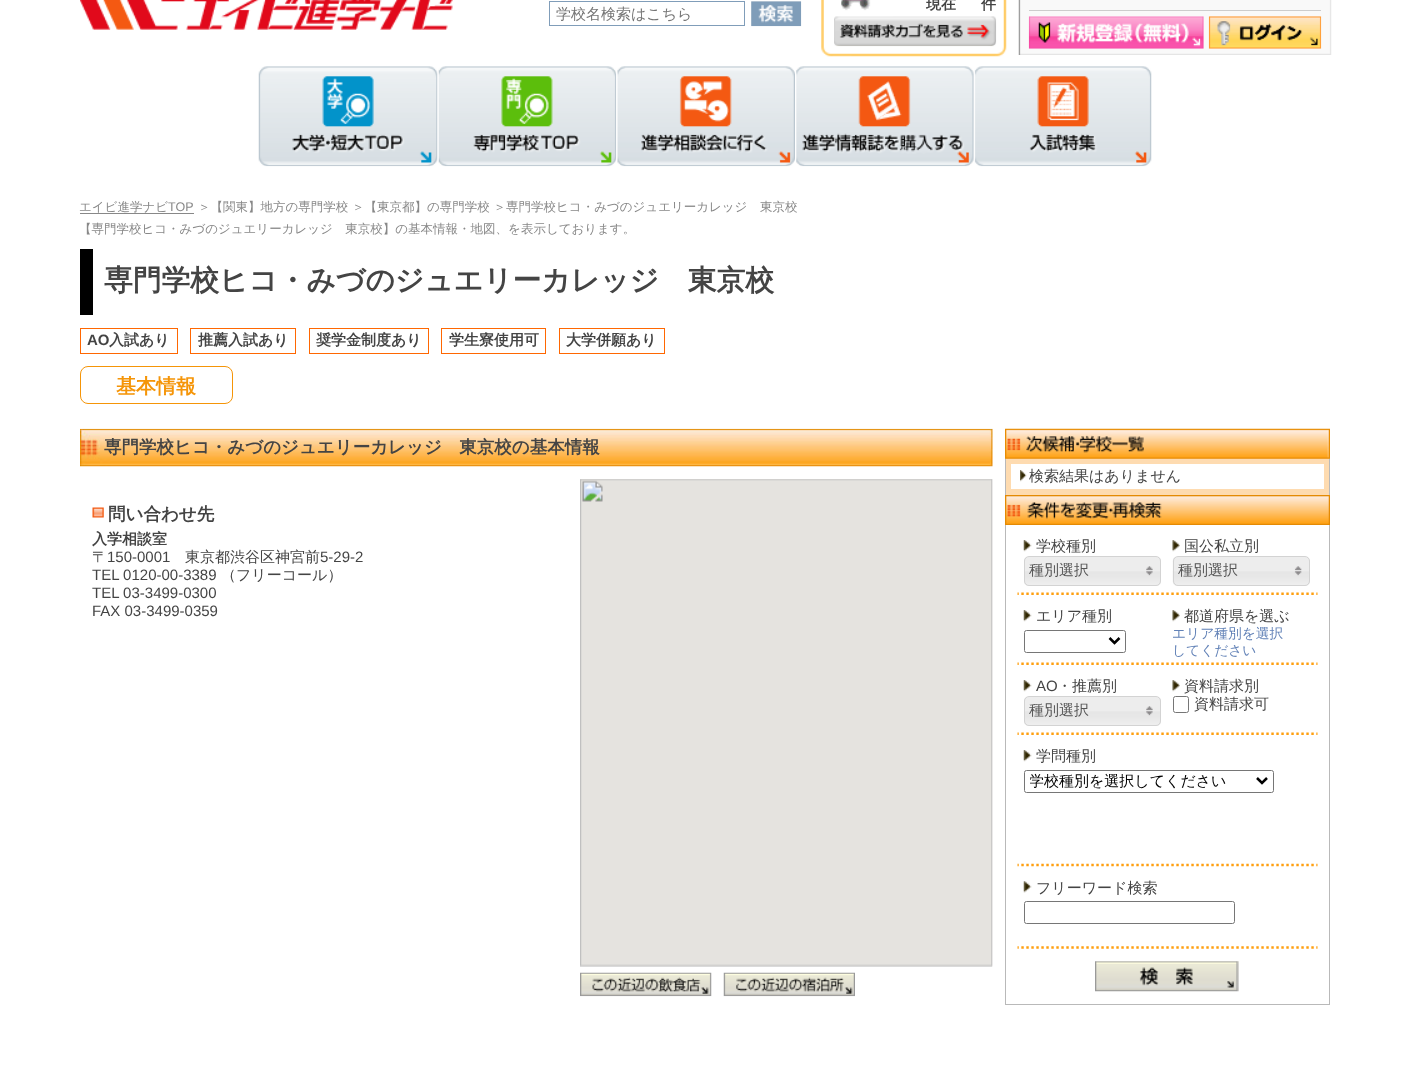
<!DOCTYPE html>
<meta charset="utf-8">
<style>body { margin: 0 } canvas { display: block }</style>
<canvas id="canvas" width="1408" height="1092"></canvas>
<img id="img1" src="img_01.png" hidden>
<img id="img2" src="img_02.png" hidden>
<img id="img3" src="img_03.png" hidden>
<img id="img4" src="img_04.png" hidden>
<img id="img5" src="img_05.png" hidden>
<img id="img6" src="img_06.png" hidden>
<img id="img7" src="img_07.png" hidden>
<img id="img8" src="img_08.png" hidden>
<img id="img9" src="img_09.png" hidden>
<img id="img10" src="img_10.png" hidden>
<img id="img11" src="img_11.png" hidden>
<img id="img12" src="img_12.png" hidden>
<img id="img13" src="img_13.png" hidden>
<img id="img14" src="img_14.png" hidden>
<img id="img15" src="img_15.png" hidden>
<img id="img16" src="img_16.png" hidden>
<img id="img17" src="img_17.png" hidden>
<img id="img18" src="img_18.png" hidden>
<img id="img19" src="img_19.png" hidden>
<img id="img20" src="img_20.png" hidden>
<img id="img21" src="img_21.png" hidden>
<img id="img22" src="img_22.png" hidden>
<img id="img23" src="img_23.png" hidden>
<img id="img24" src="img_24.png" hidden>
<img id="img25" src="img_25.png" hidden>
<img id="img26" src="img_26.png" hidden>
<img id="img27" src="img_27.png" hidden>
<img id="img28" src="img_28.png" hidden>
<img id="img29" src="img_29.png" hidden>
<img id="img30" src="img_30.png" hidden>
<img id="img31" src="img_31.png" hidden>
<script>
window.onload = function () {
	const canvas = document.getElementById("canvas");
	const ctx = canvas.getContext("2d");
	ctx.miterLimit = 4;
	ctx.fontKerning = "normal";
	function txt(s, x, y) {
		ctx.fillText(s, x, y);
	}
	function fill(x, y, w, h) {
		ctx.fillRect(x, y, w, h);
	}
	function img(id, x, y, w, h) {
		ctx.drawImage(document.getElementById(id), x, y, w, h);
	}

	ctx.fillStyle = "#FFFFFF";
	fill(0, 0, 1408, 1092);
	img("img1", 80, 0, 373, 30);
	ctx.strokeStyle = "#809DB9";
	ctx.strokeRect(549.5, 1.5, 195, 24);
	ctx.fillStyle = "#EFEFEF";
	fill(751, 1, 50, 25);
	img("img2", 751, 1, 51, 26);
	img("img3", 821, 0, 186, 57);
	img("img4", 834, 16, 163, 31);
	img("img5", 1018, 0, 314, 55);
	ctx.fillStyle = "#CCCCCC";
	fill(1029, 10, 292, 1);
	img("img6", 1028, 16, 176, 33);
	img("img7", 1208, 16, 114, 33);
	img("img8", 258, 66, 180, 101);
	img("img9", 437, 66, 180, 101);
	img("img10", 616, 66, 179, 101);
	img("img11", 796, 66, 178, 101);
	img("img12", 973, 66, 179, 101);
	ctx.fillStyle = "#888888";
	fill(80, 213, 114, 1);
	ctx.fillStyle = "#000000";
	fill(80, 249, 13, 66);
	ctx.strokeStyle = "#FF6701";
	ctx.strokeRect(80.5, 328.5, 97, 25);
	ctx.strokeRect(190.5, 328.5, 105, 25);
	ctx.strokeRect(309.5, 328.5, 119, 25);
	ctx.strokeRect(441.5, 328.5, 104, 25);
	ctx.strokeRect(559.5, 328.5, 105, 25);
	ctx.beginPath();
	ctx.roundRect(80.5, 366.5, 152, 37, 7.5);
	ctx.strokeStyle = "#F59508";
	ctx.stroke();
	img("img13", 80, 428, 913, 39);
	img("img14", 92, 507, 12, 11);
	img("img15", 580, 479, 413, 488);
	img("img16", 580, 972, 132, 25);
	img("img17", 723, 972, 132, 25);
	ctx.fillStyle = "#B9B9B9";
	fill(1329, 458, 1, 547);
	fill(1005, 1004, 325, 1);
	fill(1005, 458, 1, 547);
	ctx.fillStyle = "#FEDBB0";
	fill(1006, 458, 323, 37);
	img("img18", 1005, 428, 325, 31);
	ctx.fillStyle = "#FFFFFF";
	fill(1011, 464, 313, 25);
	img("img19", 1020, 470, 7, 12);
	img("img20", 1005, 495, 325, 30);
	img("img21", 1017, 592, 301, 3);
	img("img22", 1023, 540, 9, 12);
	img("img23", 1024, 557, 137, 29);
	ctx.beginPath();
	ctx.roundRect(1024.5, 556.5, 136, 29, 4.5);
	ctx.strokeStyle = "#D3D3D3";
	ctx.stroke();
	img("img24", 1146, 566, 7, 10);
	img("img25", 1172, 540, 8, 12);
	img("img26", 1172, 557, 138, 29);
	ctx.beginPath();
	ctx.roundRect(1173.5, 556.5, 136, 29, 4.5);
	ctx.stroke();
	img("img27", 1294, 566, 8, 10);
	img("img21", 1017, 662, 301, 3);
	img("img22", 1023, 610, 9, 12);
	ctx.beginPath();
	ctx.roundRect(1024.5, 630.5, 101, 22, 2);
	ctx.strokeStyle = "#767676";
	ctx.stroke();
	ctx.beginPath();
	ctx.moveTo(1109.5, 638);
	ctx.lineTo(1114.5, 643);
	ctx.lineTo(1119.5, 638);
	ctx.strokeStyle = "#000000";
	ctx.lineWidth = 2.5;
	ctx.stroke();
	img("img25", 1172, 610, 8, 12);
	img("img21", 1017, 732, 301, 3);
	img("img22", 1023, 680, 9, 12);
	img("img23", 1024, 697, 137, 29);
	ctx.beginPath();
	ctx.roundRect(1024.5, 696.5, 136, 29, 4.5);
	ctx.strokeStyle = "#D3D3D3";
	ctx.lineWidth = 1;
	ctx.stroke();
	img("img24", 1146, 706, 7, 10);
	img("img25", 1172, 680, 8, 12);
	ctx.beginPath();
	ctx.roundRect(1173.5, 696.5, 15, 16, 2);
	ctx.strokeStyle = "#767676";
	ctx.stroke();
	img("img28", 1017, 863, 301, 4);
	img("img22", 1023, 750, 9, 12);
	ctx.beginPath();
	ctx.roundRect(1024.5, 770.5, 249, 22, 2);
	ctx.stroke();
	ctx.beginPath();
	ctx.moveTo(1257, 778);
	ctx.lineTo(1262, 783);
	ctx.lineTo(1267, 778);
	ctx.strokeStyle = "#000000";
	ctx.lineWidth = 2.5;
	ctx.stroke();
	img("img29", 1017, 946, 301, 3);
	img("img30", 1023, 881, 9, 12);
	ctx.beginPath();
	ctx.roundRect(1024.5, 901.5, 210, 22, 2);
	ctx.strokeStyle = "#767676";
	ctx.lineWidth = 1;
	ctx.stroke();
	img("img31", 1095, 961, 144, 31);
	ctx.font = "500 15px WenQuanYi Zen Hei";
	ctx.fillStyle = "#757575";
	txt("学校名検索はこちら", 556, 19);
	ctx.font = "bold 15px WenQuanYi Zen Hei";
	ctx.fillStyle = "#444444";
	txt("現在", 926, 9);
	txt("件", 981, 9);
	ctx.font = "500 12.5px WenQuanYi Zen Hei";
	ctx.fillStyle = "#888888";
	txt("エイビ進学ナビ", 79, 211);
	ctx.font = "12.5px Liberation Sans";
	txt("TOP", 168, 211);
	ctx.font = "500 12.5px WenQuanYi Zen Hei";
	txt("＞【関東】地方の専門学校 ＞【東京都】の専門学校 ＞専門学校ヒコ・みづのジュエリーカレッジ　東京校", 198, 211);
	txt("【専門学校ヒコ・みづのジュエリーカレッジ　東京校】の基本情報・地図、を表示しております。", 79, 233);
	ctx.font = "bold 28.75px WenQuanYi Zen Hei";
	ctx.fillStyle = "#444444";
	txt("専門学校ヒコ・みづのジュエリーカレッジ　東京校", 104, 290);
	ctx.font = "bold 15px Liberation Sans";
	txt("AO", 87, 345);
	ctx.font = "bold 15px WenQuanYi Zen Hei";
	txt("入試あり", 109, 345);
	txt("推薦入試あり", 198, 345);
	txt("奨学金制度あり", 316, 345);
	txt("学生寮使用可", 449, 345);
	txt("大学併願あり", 566, 345);
	ctx.font = "bold 20px WenQuanYi Zen Hei";
	ctx.fillStyle = "#F59508";
	txt("基本情報", 116, 393);
	ctx.font = "bold 17.5px WenQuanYi Zen Hei";
	ctx.fillStyle = "#444444";
	txt("専門学校ヒコ・みづのジュエリーカレッジ　東京校の基本情報", 104, 453);
	txt("問い合わせ先", 108, 520);
	ctx.font = "bold 15px WenQuanYi Zen Hei";
	txt("入学相談室", 92, 544);
	ctx.font = "500 15px WenQuanYi Zen Hei";
	txt("〒", 92, 562);
	ctx.font = "15px Liberation Sans";
	txt("150-0001", 107, 562);
	ctx.font = "500 15px WenQuanYi Zen Hei";
	txt("東京都渋谷区神宮前", 185, 562);
	ctx.font = "15px Liberation Sans";
	txt("5-29-2", 320, 562);
	txt("TEL 0120-00-3389", 92, 580);
	ctx.font = "500 15px WenQuanYi Zen Hei";
	txt("（フリーコール）", 221, 580);
	ctx.font = "15px Liberation Sans";
	txt("TEL 03-3499-0300", 92, 598);
	txt("FAX 03-3499-0359", 92, 616);
	ctx.font = "500 15px WenQuanYi Zen Hei";
	txt("検索結果はありません", 1029, 481);
	txt("学校種別", 1036, 551);
	ctx.fillStyle = "#555555";
	txt("種別選択", 1029, 575);
	ctx.fillStyle = "#444444";
	txt("国公私立別", 1184, 551);
	ctx.fillStyle = "#555555";
	txt("種別選択", 1178, 575);
	ctx.fillStyle = "#444444";
	txt("エリア種別", 1036, 621);
	txt("都道府県を選ぶ", 1184, 621);
	ctx.font = "500 13.75px WenQuanYi Zen Hei";
	ctx.fillStyle = "#6282B7";
	txt("エリア種別を選択", 1172, 638);
	txt("してください", 1172, 655);
	ctx.font = "15px Liberation Sans";
	ctx.fillStyle = "#444444";
	txt("AO", 1036, 691);
	ctx.font = "500 15px WenQuanYi Zen Hei";
	txt("・推薦別", 1057, 691);
	ctx.fillStyle = "#555555";
	txt("種別選択", 1029, 715);
	ctx.fillStyle = "#444444";
	txt("資料請求別", 1184, 691);
	txt("資料請求可", 1194, 709);
	txt("学問種別", 1036, 761);
	ctx.save();
	ctx.beginPath();
	ctx.rect(1030, 771, 223, 20);
	ctx.clip();
	ctx.fillStyle = "#000000";
	txt("学校種別を選択してください", 1029, 786);
	ctx.restore();
	txt("フリーワード検索", 1036, 893);
};
</script>
